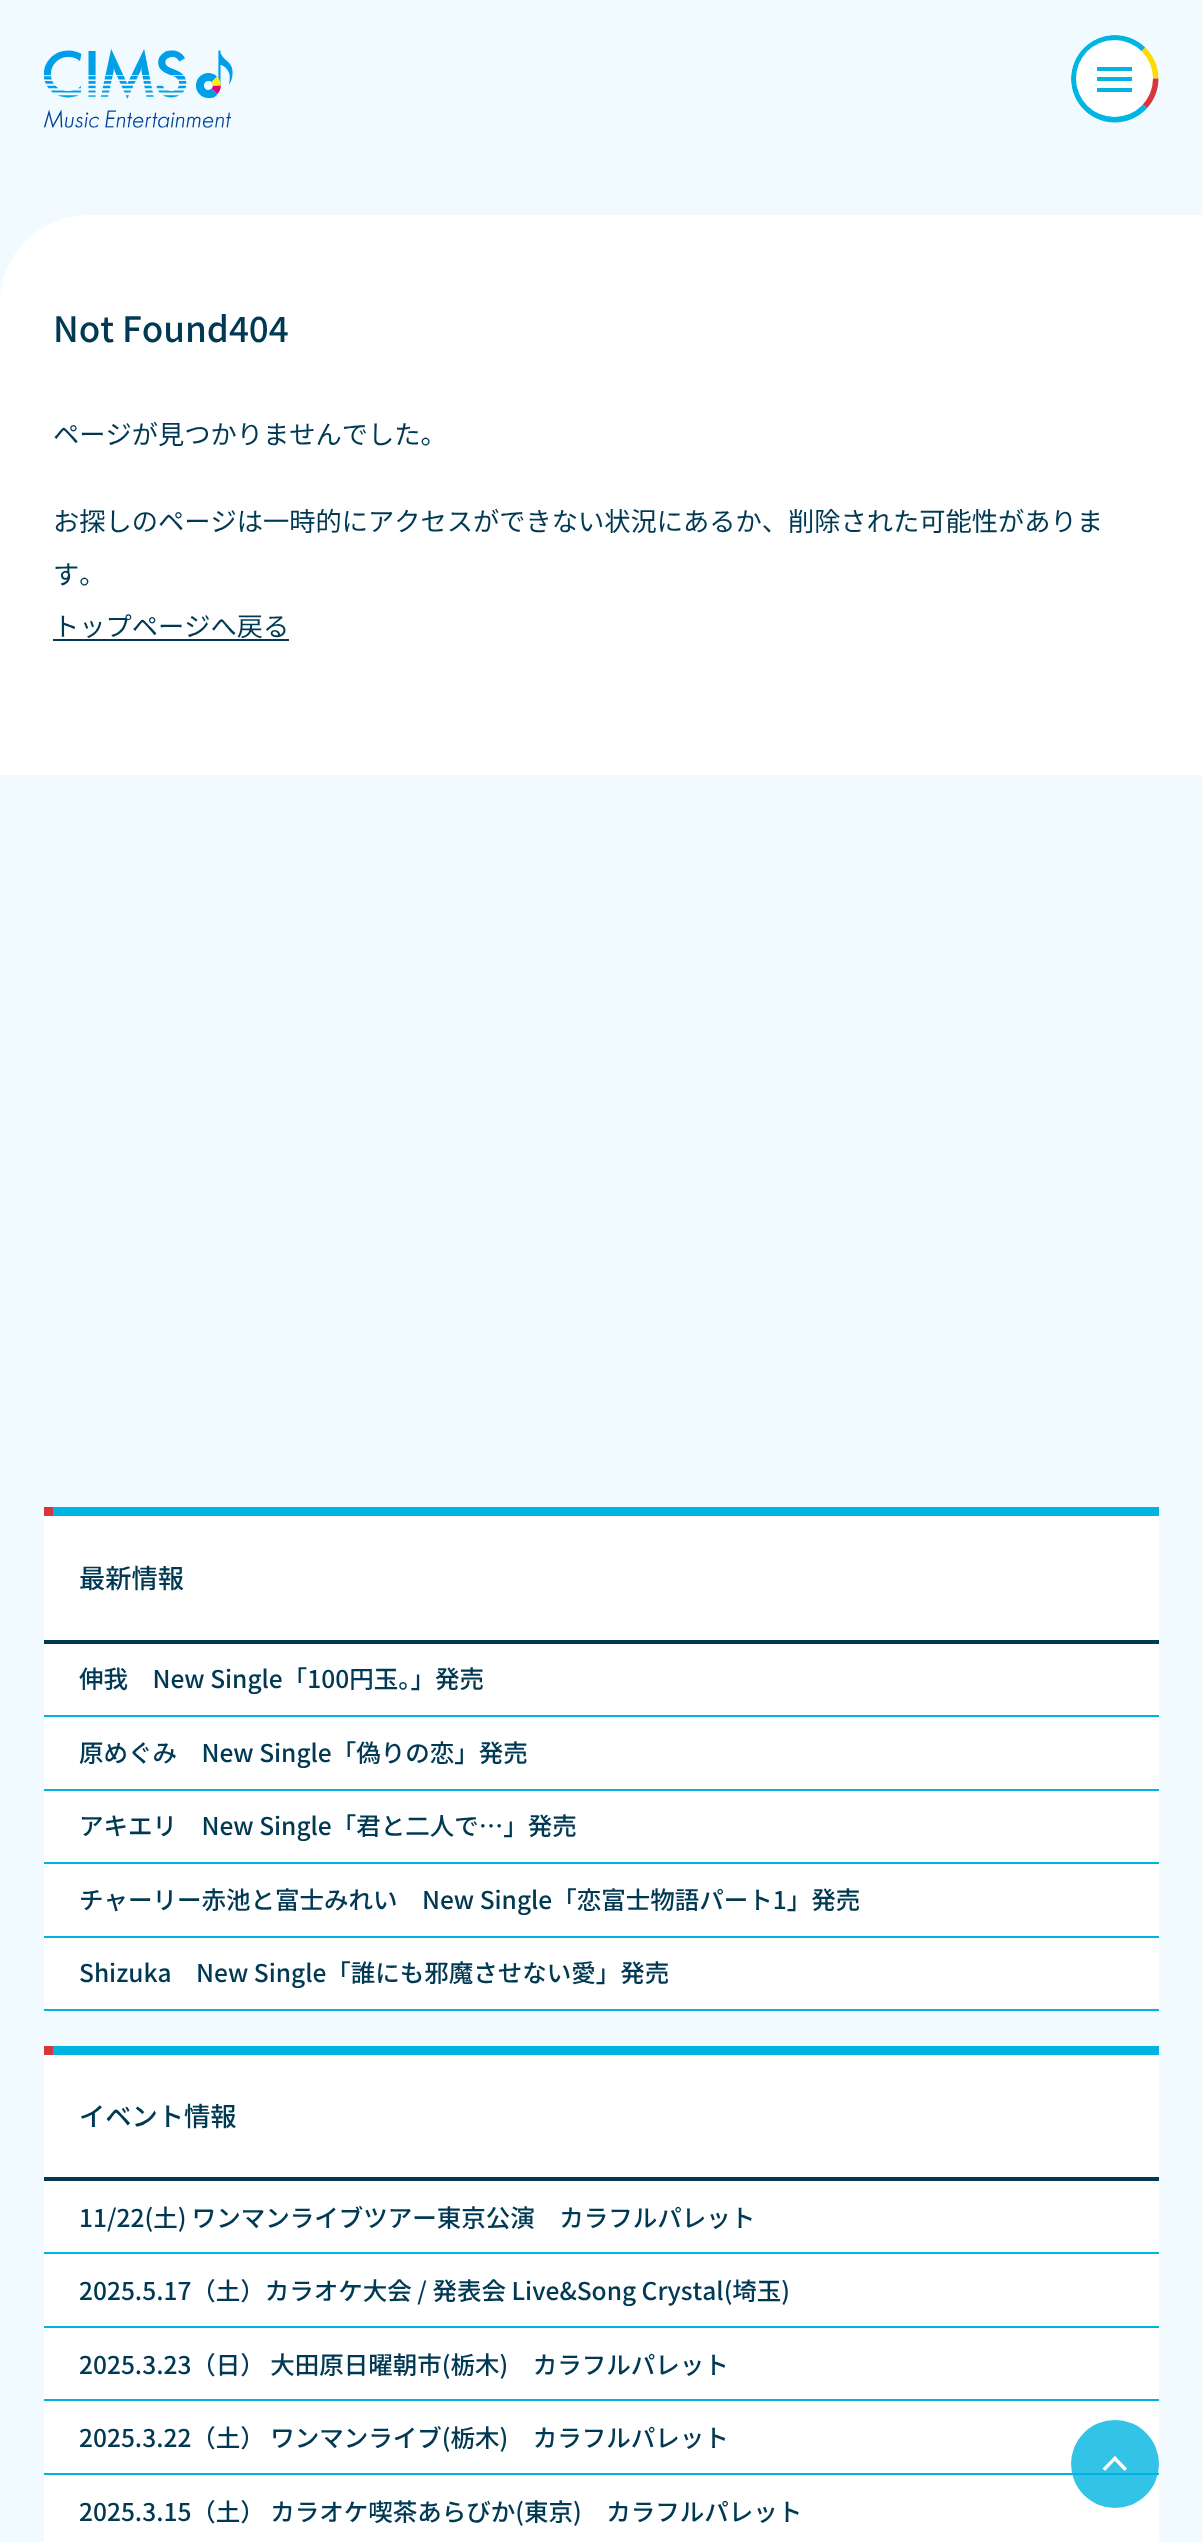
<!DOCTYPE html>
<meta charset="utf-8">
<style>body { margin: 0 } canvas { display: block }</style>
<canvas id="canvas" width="1202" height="2542"></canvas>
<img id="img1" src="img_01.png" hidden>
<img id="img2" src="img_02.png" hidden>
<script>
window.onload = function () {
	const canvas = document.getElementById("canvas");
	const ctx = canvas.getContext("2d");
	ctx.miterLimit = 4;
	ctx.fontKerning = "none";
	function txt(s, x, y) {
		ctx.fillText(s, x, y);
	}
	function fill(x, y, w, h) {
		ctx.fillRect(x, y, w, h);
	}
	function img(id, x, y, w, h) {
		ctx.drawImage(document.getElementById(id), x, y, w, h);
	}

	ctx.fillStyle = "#F0FAFF";
	fill(0, 0, 1202, 2542);
	img("img1", 44, 49, 189, 79);
	img("img2", 1071, 35, 88, 88);
	ctx.fillStyle = "#FFFFFF";
	ctx.beginPath();
	ctx.arc(1114.5, 78.5, 38.5, 0, Math.PI * 2);
	ctx.fill();
	ctx.fillStyle = "#00B4E1";
	fill(1097, 67, 35, 4);
	fill(1097, 77, 35, 4);
	fill(1097, 88, 35, 4);
	ctx.fillStyle = "#FFFFFF";
	ctx.beginPath();
	ctx.roundRect(0, 215, 1202, 560, [88, 0, 0, 0]);
	ctx.fill();
	ctx.fillStyle = "#003953";
	fill(53, 639, 236, 2);
	ctx.fillStyle = "#FFFFFF";
	fill(44, 1516, 1115, 493);
	ctx.fillStyle = "#00B4E1";
	fill(53, 1507, 1106, 9);
	ctx.fillStyle = "#D6363E";
	fill(44, 1507, 9, 9);
	ctx.fillStyle = "#003953";
	fill(44, 1640, 1115, 4);
	ctx.fillStyle = "#00B4E1";
	fill(44, 1715, 1115, 2);
	fill(44, 1789, 1115, 2);
	fill(44, 1862, 1115, 2);
	fill(44, 1936, 1115, 2);
	fill(44, 2009, 1115, 2);
	ctx.fillStyle = "#FFFFFF";
	fill(44, 2055, 1115, 487);
	ctx.fillStyle = "#00B4E1";
	fill(53, 2046, 1106, 9);
	ctx.fillStyle = "#D6363E";
	fill(44, 2046, 9, 9);
	ctx.fillStyle = "#003953";
	fill(44, 2177, 1115, 4);
	ctx.fillStyle = "#00B4E1";
	fill(44, 2252, 1115, 2);
	fill(44, 2326, 1115, 2);
	fill(44, 2399, 1115, 2);
	fill(44, 2473, 1115, 2);
	ctx.fillStyle = "rgba(0, 180, 225, 0.8)";
	ctx.beginPath();
	ctx.arc(1115, 2464, 44, 0, Math.PI * 2);
	ctx.fill();
	ctx.fillStyle = "#FFFFFF";
	ctx.beginPath();
	ctx.moveTo(1102.5, 2468.5);
	ctx.lineTo(1115, 2456);
	ctx.lineTo(1117, 2458.5);
	ctx.lineTo(1105, 2471);
	ctx.closePath();
	ctx.fill();
	ctx.beginPath();
	ctx.moveTo(1112.5, 2458.5);
	ctx.lineTo(1115, 2456);
	ctx.lineTo(1127, 2468.5);
	ctx.lineTo(1124.5, 2471);
	ctx.closePath();
	ctx.fill();
	ctx.font = "500 35px Noto Sans JP";
	ctx.fillStyle = "#003953";
	txt("Not Found404", 53, 342);
	ctx.font = "26.25px Noto Sans JP";
	txt("ページが見つかりませんでした。", 53, 444);
	txt("お探しのページは一時的にアクセスができない状況にあるか、削除された可能性がありま", 53, 531);
	txt("す。", 53, 584);
	txt("トップページへ戻る", 53, 636);
	ctx.font = "500 26.25px Noto Sans JP";
	txt("最新情報", 79, 1588);
	ctx.font = "500 24.5px Noto Sans JP";
	txt("伸我　New Single「100円玉。」発売", 79, 1688);
	txt("原めぐみ　New Single「偽りの恋」発売", 79, 1762);
	txt("アキエリ　New Single「君と二人で…」発売", 79, 1835);
	txt("チャーリー赤池と富士みれい　New Single「恋富士物語パート1」発売", 79, 1909);
	txt("Shizuka　New Single「誰にも邪魔させない愛」発売", 79, 1982);
	ctx.font = "500 26.25px Noto Sans JP";
	txt("イベント情報", 79, 2126);
	ctx.font = "500 24.5px Noto Sans JP";
	txt("11/22(土) ワンマンライブツアー東京公演　カラフルパレット", 79, 2227);
	txt("2025.5.17（土）カラオケ大会 / 発表会 Live&Song Crystal(埼玉)", 79, 2300);
	txt("2025.3.23（日） 大田原日曜朝市(栃木)　カラフルパレット", 79, 2374);
	txt("2025.3.22（土） ワンマンライブ(栃木)　カラフルパレット", 79, 2447);
	txt("2025.3.15（土） カラオケ喫茶あらびか(東京)　カラフルパレット", 79, 2521);
};
</script>
